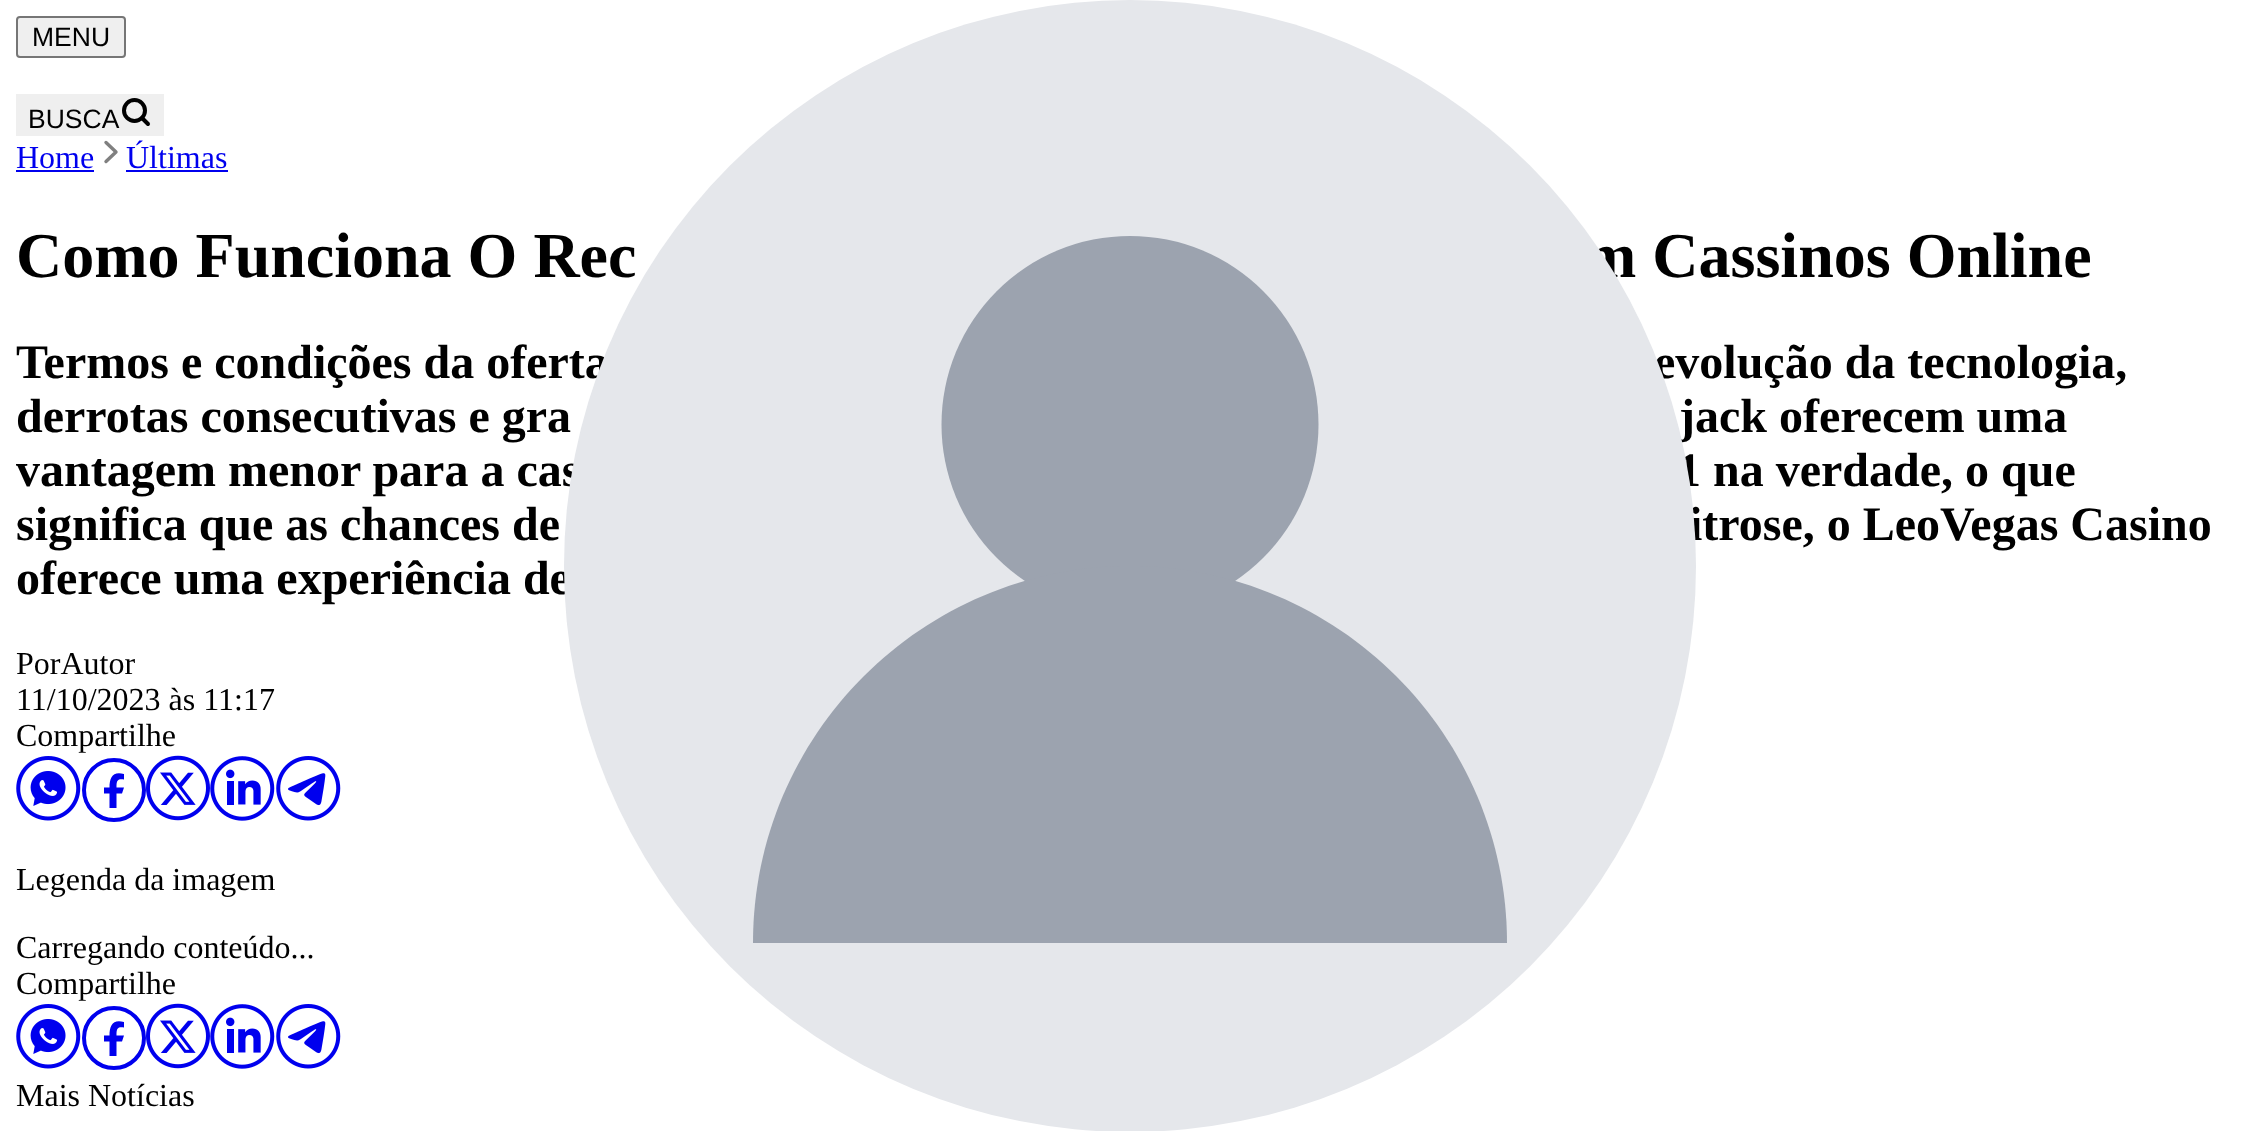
<!DOCTYPE html>
<meta charset="utf-8">
<style>body { margin: 0 } canvas { display: block }</style>
<canvas id="canvas" width="2259" height="1131"></canvas>
<img id="img1" src="img_01.png" hidden>
<img id="img2" src="img_02.png" hidden>
<img id="img3" src="img_03.png" hidden>
<img id="img4" src="img_04.png" hidden>
<script>
window.onload = function () {
	const canvas = document.getElementById("canvas");
	const ctx = canvas.getContext("2d");
	ctx.miterLimit = 4;
	ctx.fontKerning = "normal";
	function txt(s, x, y) {
		ctx.fillText(s, x, y);
	}
	function fill(x, y, w, h) {
		ctx.fillRect(x, y, w, h);
	}
	function img(id, x, y, w, h) {
		ctx.drawImage(document.getElementById(id), x, y, w, h);
	}

	ctx.fillStyle = "#FFFFFF";
	fill(0, 0, 2259, 1131);
	ctx.fillStyle = "#EFEFEF";
	ctx.beginPath();
	ctx.roundRect(17, 17, 108, 40, 3);
	ctx.fill();
	ctx.strokeStyle = "#767676";
	ctx.lineWidth = 2;
	ctx.stroke();
	fill(16, 94, 148, 42);
	ctx.beginPath();
	ctx.arc(134.5, 110.5, 10.5, 0, Math.PI * 2);
	ctx.strokeStyle = "#000000";
	ctx.lineWidth = 4;
	ctx.stroke();
	ctx.beginPath();
	ctx.moveTo(148, 124);
	ctx.lineTo(142, 118);
	ctx.lineCap = "round";
	ctx.lineJoin = "round";
	ctx.stroke();
	ctx.fillStyle = "#0000EE";
	fill(16, 170, 78, 2);
	ctx.beginPath();
	ctx.moveTo(106, 142.5);
	ctx.lineTo(116, 152);
	ctx.lineTo(106, 161.5);
	ctx.strokeStyle = "#808080";
	ctx.lineWidth = 3.4;
	ctx.stroke();
	fill(126, 170, 102, 2);
	img("img1", 16, 756, 65, 65);
	ctx.beginPath();
	ctx.arc(114, 790, 30, 0, Math.PI * 2);
	ctx.strokeStyle = "#0000EE";
	ctx.lineWidth = 4;
	ctx.stroke();
	img("img2", 146, 755, 64, 66);
	img("img3", 210, 756, 65, 65);
	img("img4", 276, 756, 65, 65);
	ctx.beginPath();
	ctx.moveTo(116.5, 793.5);
	ctx.lineTo(116.5, 808);
	ctx.lineTo(109.5, 808);
	ctx.lineTo(109.5, 793.5);
	ctx.lineTo(104, 793.5);
	ctx.lineTo(104, 787.5);
	ctx.lineTo(109.5, 787.5);
	ctx.bezierCurveTo(109.5, 777, 113, 771, 124, 774);
	ctx.lineTo(124, 779.5);
	ctx.bezierCurveTo(117, 778.5, 116.5, 781, 116.5, 787.5);
	ctx.lineTo(124, 787.5);
	ctx.lineTo(122, 793.5);
	ctx.closePath();
	ctx.fill();
	img("img1", 16, 1004, 65, 65);
	ctx.beginPath();
	ctx.arc(114, 1038, 30, 0, Math.PI * 2);
	ctx.stroke();
	img("img2", 146, 1003, 64, 66);
	img("img3", 210, 1004, 65, 65);
	img("img4", 276, 1004, 65, 65);
	ctx.beginPath();
	ctx.moveTo(116.5, 1041.5);
	ctx.lineTo(116.5, 1056);
	ctx.lineTo(109.5, 1056);
	ctx.lineTo(109.5, 1041.5);
	ctx.lineTo(104, 1041.5);
	ctx.lineTo(104, 1035.5);
	ctx.lineTo(109.5, 1035.5);
	ctx.bezierCurveTo(109.5, 1025, 113, 1019, 124, 1022);
	ctx.lineTo(124, 1027.5);
	ctx.bezierCurveTo(117, 1026.5, 116.5, 1029, 116.5, 1035.5);
	ctx.lineTo(124, 1035.5);
	ctx.lineTo(122, 1041.5);
	ctx.closePath();
	ctx.fill();
	ctx.font = "26.5px Liberation Sans";
	ctx.fillStyle = "#000000";
	txt("MENU", 32, 46);
	txt("BUSCA", 28, 128);
	ctx.font = "32px Liberation Serif";
	ctx.fillStyle = "#0000EE";
	txt("Home", 16, 168);
	txt("Últimas", 126, 168);
	ctx.font = "bold 64px Liberation Serif";
	ctx.fillStyle = "#000000";
	txt("Como Funciona O Rec", 16, 277);
	txt("m Cassinos Online", 1583, 277);
	ctx.font = "bold 48px Liberation Serif";
	txt("Termos e condições da oferta", 16, 378);
	txt("evolução da tecnologia,", 1654, 378);
	txt("derrotas consecutivas e gra", 16, 432);
	txt("jack oferecem uma", 1679, 432);
	txt("vantagem menor para a cas", 16, 486);
	txt("1 na verdade, o que", 1677, 486);
	txt("significa que as chances de", 16, 540);
	txt("itrose, o LeoVegas Casino", 1689, 540);
	txt("oferece uma experiência de", 16, 594);
	ctx.font = "32px Liberation Serif";
	txt("PorAutor", 16, 674);
	txt("11/10/2023 às 11:17", 16, 710);
	ctx.fillStyle = "#E5E7EB";
	ctx.beginPath();
	ctx.arc(1130, 566, 566, 0, Math.PI * 2);
	ctx.fill();
	ctx.fillStyle = "#9CA3AF";
	ctx.beginPath();
	ctx.arc(1130, 424.5, 188.5, 0, Math.PI * 2);
	ctx.fill();
	ctx.beginPath();
	ctx.moveTo(753, 943);
	ctx.bezierCurveTo(753, 735, 922, 566, 1130, 566);
	ctx.bezierCurveTo(1338, 566, 1507, 735, 1507, 943);
	ctx.fill();
	ctx.fillStyle = "#000000";
	txt("Compartilhe", 16, 746);
	txt("Legenda da imagem", 16, 890);
	txt("Carregando conteúdo...", 16, 958);
	txt("Compartilhe", 16, 994);
	txt("Mais Notícias", 16, 1106);
};
</script>
